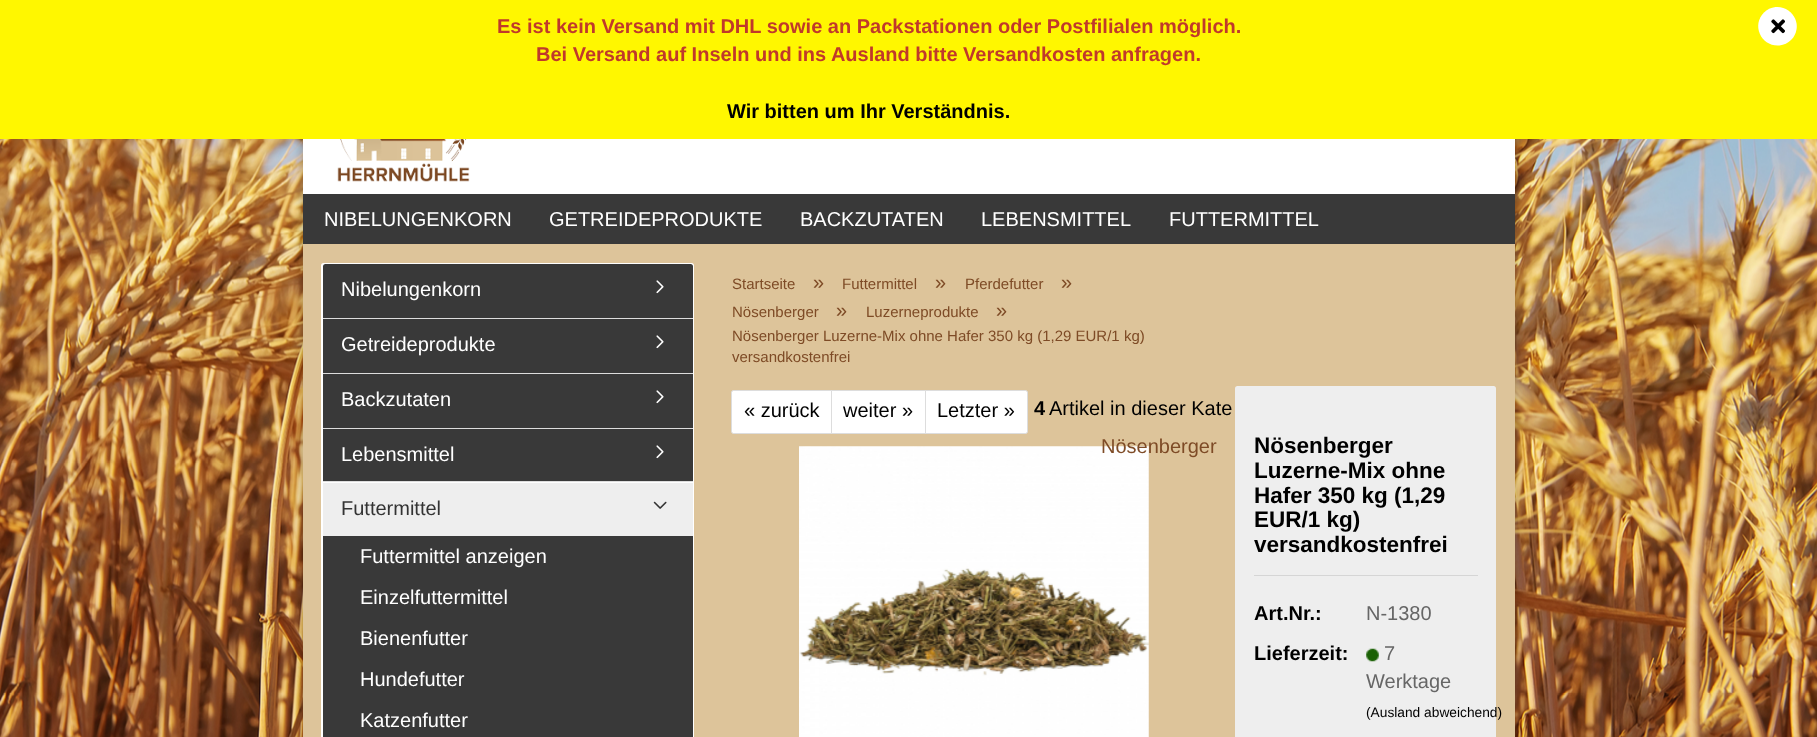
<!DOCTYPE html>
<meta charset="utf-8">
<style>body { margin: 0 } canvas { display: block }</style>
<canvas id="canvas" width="1817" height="737"></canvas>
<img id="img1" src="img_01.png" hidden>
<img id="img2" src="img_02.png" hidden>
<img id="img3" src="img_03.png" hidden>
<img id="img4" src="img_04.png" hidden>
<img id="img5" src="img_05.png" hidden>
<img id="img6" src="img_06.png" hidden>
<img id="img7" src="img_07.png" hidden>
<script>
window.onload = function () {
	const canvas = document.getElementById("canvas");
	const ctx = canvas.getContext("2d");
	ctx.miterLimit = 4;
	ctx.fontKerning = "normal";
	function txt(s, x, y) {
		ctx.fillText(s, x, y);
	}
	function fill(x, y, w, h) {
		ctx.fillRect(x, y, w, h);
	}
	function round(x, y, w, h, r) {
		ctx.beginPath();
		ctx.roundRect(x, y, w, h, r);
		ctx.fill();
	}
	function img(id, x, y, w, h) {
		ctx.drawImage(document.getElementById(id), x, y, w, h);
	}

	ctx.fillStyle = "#FFFFFF";
	fill(0, 0, 1817, 737);
	img("img1", 0, 139, 1817, 598);
	ctx.fillStyle = "rgba(0, 0, 0, 0.3)";
	ctx.filter = "blur(6px)";
	ctx.beginPath();
	ctx.roundRect(303, 44, 1212, 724, 13);
	ctx.fill();
	ctx.filter = "none";
	ctx.fillStyle = "#DDC49A";
	fill(303, 244, 1212, 493);
	ctx.fillStyle = "#FFFFFF";
	fill(303, 139, 1212, 55);
	ctx.fillStyle = "#FFF700";
	fill(0, 0, 1817, 139);
	ctx.fillStyle = "#FFFFFF";
	ctx.beginPath();
	ctx.moveTo(1764, 12.5);
	ctx.bezierCurveTo(1767, 9.5, 1771, 7.5, 1775.5, 7);
	ctx.bezierCurveTo(1793.5, 5.5, 1804, 27, 1791, 40);
	ctx.bezierCurveTo(1788, 43, 1784, 45, 1779.5, 45.5);
	ctx.bezierCurveTo(1761.5, 47, 1751, 25.5, 1764, 12.5);
	ctx.closePath();
	ctx.fill();
	img("img2", 1771, 19, 14, 15);
	img("img3", 337, 139, 133, 43);
	ctx.fillStyle = "#393939";
	fill(303, 194, 1212, 50);
	ctx.fillStyle = "#FFFFFF";
	round(321, 263, 373, 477, 2.5);
	ctx.fillStyle = "#DDDDDD";
	fill(323, 318, 370, 1);
	ctx.fillStyle = "#393939";
	ctx.beginPath();
	ctx.roundRect(323, 264, 370, 54, [2.5, 2.5, 0, 0]);
	ctx.fill();
	img("img4", 656, 280, 8, 14);
	ctx.fillStyle = "#DDDDDD";
	fill(323, 373, 370, 1);
	ctx.fillStyle = "#393939";
	fill(323, 319, 370, 54);
	img("img4", 656, 335, 8, 14);
	ctx.fillStyle = "#DDDDDD";
	fill(323, 428, 370, 1);
	ctx.fillStyle = "#393939";
	fill(323, 374, 370, 54);
	img("img4", 656, 390, 8, 14);
	ctx.fillStyle = "#DDDDDD";
	fill(323, 481, 370, 1);
	ctx.fillStyle = "#393939";
	fill(323, 429, 370, 52);
	img("img4", 656, 445, 8, 14);
	ctx.fillStyle = "#EEEEEE";
	fill(323, 483, 370, 53);
	img("img5", 653, 501, 14, 8);
	ctx.fillStyle = "#393939";
	fill(323, 536, 370, 201);
	ctx.fillStyle = "#FFFFFF";
	ctx.beginPath();
	ctx.roundRect(731.5, 390.5, 101, 43, [2, 0, 0, 2]);
	ctx.fill();
	ctx.strokeStyle = "#DDDDDD";
	ctx.stroke();
	ctx.beginPath();
	ctx.rect(831.5, 390.5, 94, 43);
	ctx.fill();
	ctx.stroke();
	ctx.beginPath();
	ctx.roundRect(925.5, 390.5, 102, 43, [0, 2, 2, 0]);
	ctx.fill();
	ctx.stroke();
	img("img6", 799, 446, 350, 291);
	ctx.fillStyle = "#EEEEEE";
	round(1235, 386, 261, 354, 2.5);
	ctx.fillStyle = "#D5D5D5";
	fill(1254, 575, 224, 1);
	img("img7", 1366, 648, 13, 14);
	ctx.font = "bold 20px Liberation Sans";
	ctx.fillStyle = "#C0392B";
	txt("Es ist kein Versand mit DHL sowie an Packstationen oder Postfilialen möglich.", 497, 33);
	txt("Bei Versand auf Inseln und ins Ausland bitte Versandkosten anfragen.", 536, 61);
	ctx.fillStyle = "#000000";
	txt("Wir bitten um Ihr Verständnis.", 727, 118);
	ctx.font = "20px Liberation Sans";
	ctx.fillStyle = "#FFFFFF";
	txt("NIBELUNGENKORN", 324, 226);
	txt("GETREIDEPRODUKTE", 549, 226);
	txt("BACKZUTATEN", 800, 226);
	txt("LEBENSMITTEL", 981, 226);
	txt("FUTTERMITTEL", 1169, 226);
	txt("Nibelungenkorn", 341, 296);
	txt("Getreideprodukte", 341, 351);
	txt("Backzutaten", 341, 406);
	txt("Lebensmittel", 341, 461);
	ctx.fillStyle = "#333333";
	txt("Futtermittel", 341, 515);
	ctx.fillStyle = "#FFFFFF";
	txt("Futtermittel anzeigen", 360, 563);
	txt("Einzelfuttermittel", 360, 604);
	txt("Bienenfutter", 360, 645);
	txt("Hundefutter", 360, 686);
	txt("Katzenfutter", 360, 727);
	ctx.font = "15px Liberation Sans";
	ctx.fillStyle = "#7E4B26";
	txt("Startseite", 732, 289);
	ctx.font = "20px Liberation Sans";
	txt("»", 813, 289);
	ctx.font = "15px Liberation Sans";
	txt("Futtermittel", 842, 289);
	ctx.font = "20px Liberation Sans";
	txt("»", 935, 289);
	ctx.font = "15px Liberation Sans";
	txt("Pferdefutter", 965, 289);
	ctx.font = "20px Liberation Sans";
	txt("»", 1061, 289);
	ctx.font = "15px Liberation Sans";
	txt("Nösenberger", 732, 317);
	ctx.font = "20px Liberation Sans";
	txt("»", 836, 317);
	ctx.font = "15px Liberation Sans";
	txt("Luzerneprodukte", 866, 317);
	ctx.font = "20px Liberation Sans";
	txt("»", 996, 317);
	ctx.font = "15px Liberation Sans";
	txt("Nösenberger Luzerne-Mix ohne Hafer 350 kg (1,29 EUR/1 kg)", 732, 341);
	txt("versandkostenfrei", 732, 362);
	ctx.font = "20px Liberation Sans";
	ctx.fillStyle = "#000000";
	txt("« zurück", 744, 417);
	txt("weiter »", 843, 417);
	txt("Letzter »", 937, 417);
	ctx.font = "bold 20px Liberation Sans";
	txt("4", 1034, 415);
	ctx.font = "20px Liberation Sans";
	txt("Artikel in dieser Kate", 1049, 415);
	ctx.fillStyle = "#7E4B26";
	txt("Nösenberger", 1101, 453);
	ctx.font = "bold 22.5px Liberation Sans";
	ctx.fillStyle = "#000000";
	txt("Nösenberger", 1254, 453);
	txt("Luzerne-Mix ohne", 1254, 478);
	txt("Hafer 350 kg (1,29", 1254, 503);
	txt("EUR/1 kg)", 1254, 527);
	txt("versandkostenfrei", 1254, 552);
	ctx.font = "bold 20px Liberation Sans";
	txt("Art.Nr.:", 1254, 620);
	ctx.font = "20px Liberation Sans";
	ctx.fillStyle = "#666666";
	txt("N-1380", 1366, 620);
	ctx.font = "bold 20px Liberation Sans";
	ctx.fillStyle = "#000000";
	txt("Lieferzeit:", 1254, 660);
	ctx.font = "20px Liberation Sans";
	ctx.fillStyle = "#666666";
	txt("7", 1384, 660);
	txt("Werktage", 1366, 688);
	ctx.font = "13.75px Liberation Sans";
	ctx.fillStyle = "#000000";
	txt("(Ausland abweichend)", 1366, 717);
};
</script>
